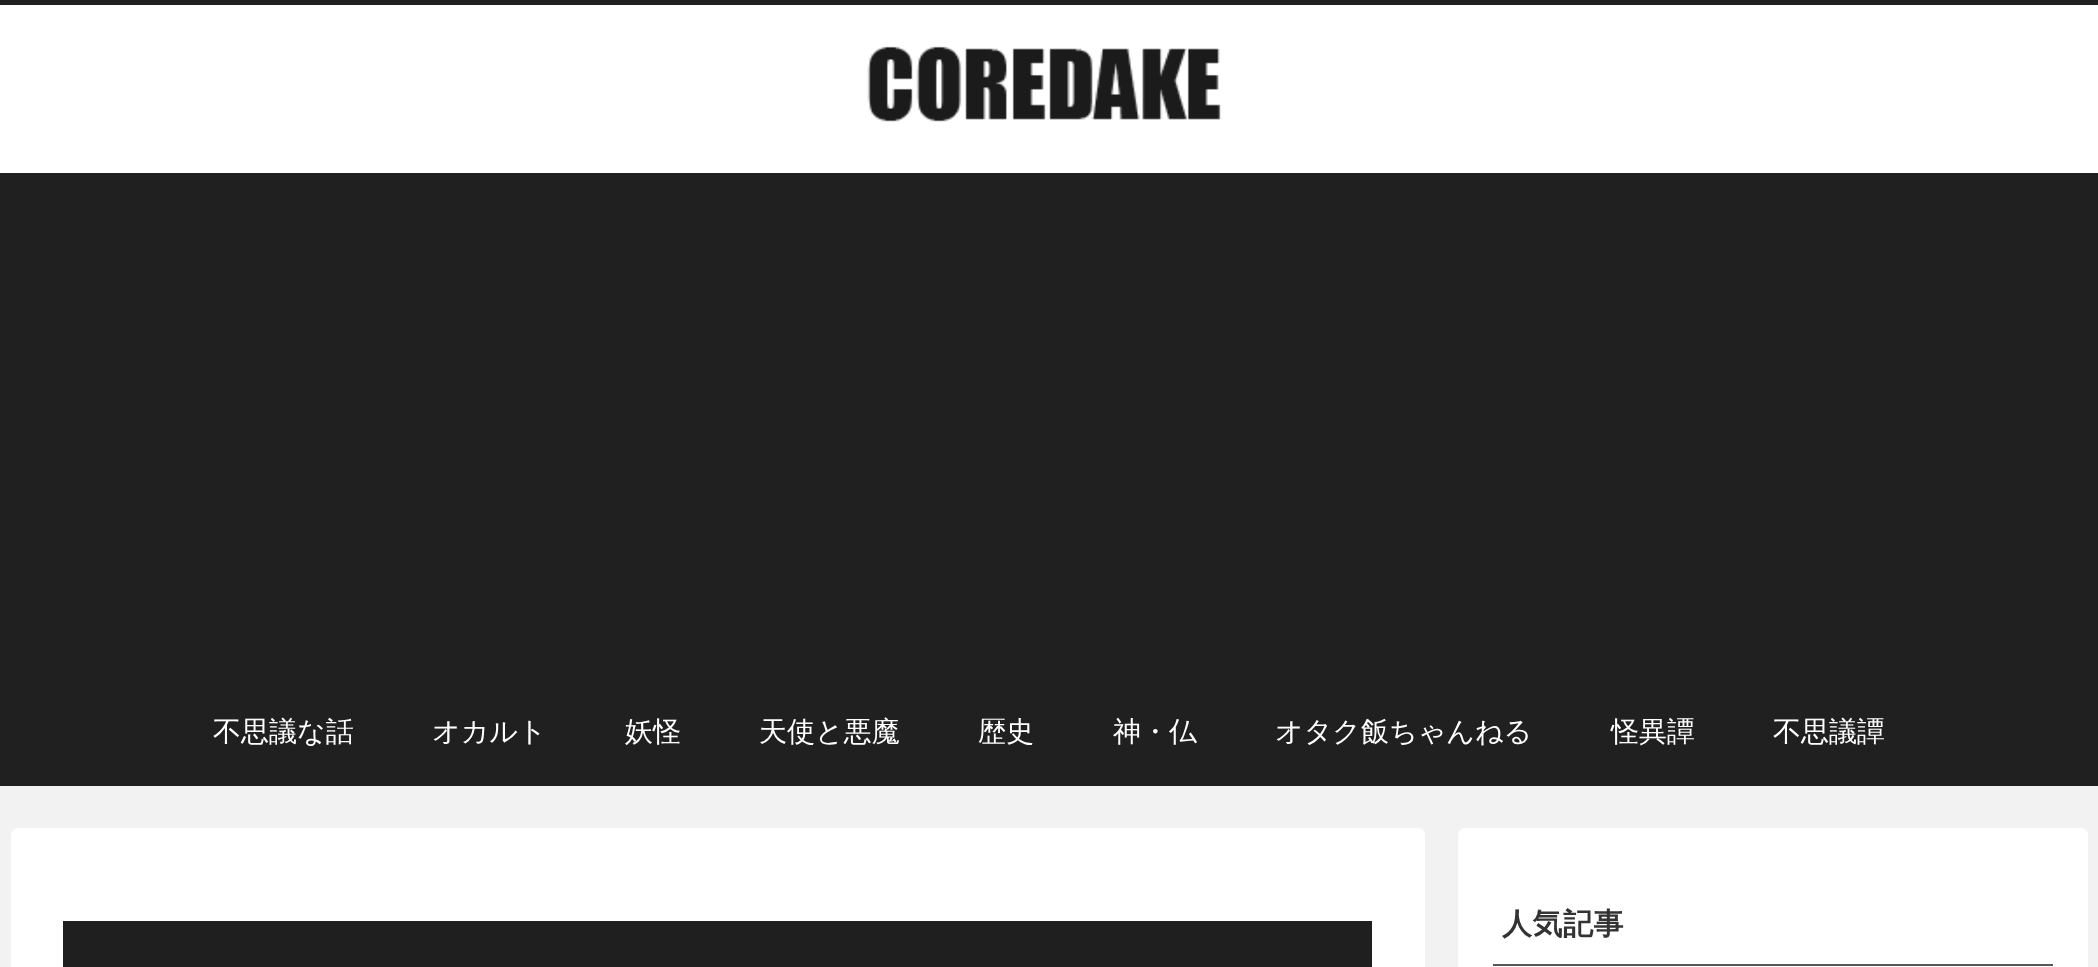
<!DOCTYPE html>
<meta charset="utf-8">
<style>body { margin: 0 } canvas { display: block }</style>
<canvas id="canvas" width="2098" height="967"></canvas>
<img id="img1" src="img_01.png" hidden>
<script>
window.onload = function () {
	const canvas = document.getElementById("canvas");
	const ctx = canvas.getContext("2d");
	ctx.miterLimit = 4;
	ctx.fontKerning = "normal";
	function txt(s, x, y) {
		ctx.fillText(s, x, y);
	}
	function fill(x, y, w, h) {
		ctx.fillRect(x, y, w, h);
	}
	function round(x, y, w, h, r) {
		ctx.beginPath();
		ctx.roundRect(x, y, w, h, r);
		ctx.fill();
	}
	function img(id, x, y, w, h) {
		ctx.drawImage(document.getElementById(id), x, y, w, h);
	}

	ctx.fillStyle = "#F2F2F2";
	fill(0, 0, 2098, 967);
	ctx.fillStyle = "#FFFFFF";
	fill(0, 5, 2098, 168);
	ctx.fillStyle = "#202020";
	fill(0, 0, 2098, 5);
	img("img1", 867, 46, 354, 76);
	fill(0, 173, 2098, 613);
	ctx.fillStyle = "#FFFFFF";
	round(11, 828, 1414, 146, 7);
	ctx.fillStyle = "#1F1F1F";
	fill(63, 921, 1309, 46);
	ctx.fillStyle = "#FFFFFF";
	round(1458, 828, 630, 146, 7);
	ctx.fillStyle = "#595857";
	fill(1493, 964, 560, 2);
	ctx.font = "500 28px WenQuanYi Zen Hei";
	ctx.fillStyle = "#FFFFFF";
	txt("不思議な話", 213, 741);
	txt("オカルト", 432, 741);
	txt("妖怪", 625, 741);
	txt("天使と悪魔", 759, 741);
	txt("歴史", 978, 741);
	txt("神・仏", 1113, 741);
	txt("オタク飯ちゃんねる", 1275, 741);
	txt("怪異譚", 1611, 741);
	txt("不思議譚", 1773, 741);
	ctx.letterSpacing = "0.5px";
	ctx.font = "bold 30px WenQuanYi Zen Hei";
	ctx.fillStyle = "#333333";
	txt("人気記事", 1502, 934);
};
</script>
